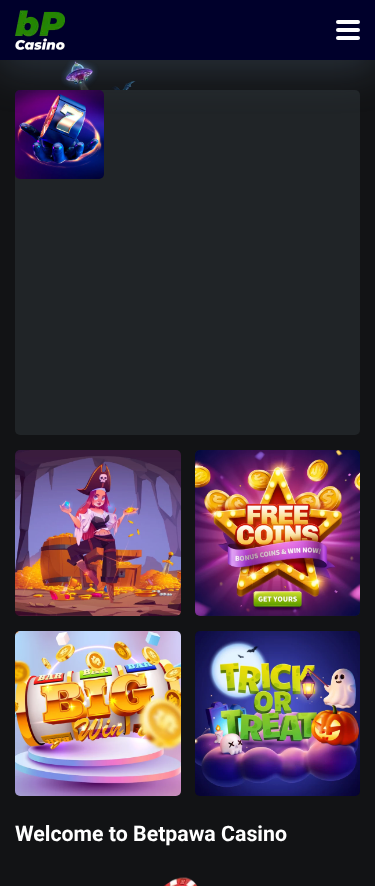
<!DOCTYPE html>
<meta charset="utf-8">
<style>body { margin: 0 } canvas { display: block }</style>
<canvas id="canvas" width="375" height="886"></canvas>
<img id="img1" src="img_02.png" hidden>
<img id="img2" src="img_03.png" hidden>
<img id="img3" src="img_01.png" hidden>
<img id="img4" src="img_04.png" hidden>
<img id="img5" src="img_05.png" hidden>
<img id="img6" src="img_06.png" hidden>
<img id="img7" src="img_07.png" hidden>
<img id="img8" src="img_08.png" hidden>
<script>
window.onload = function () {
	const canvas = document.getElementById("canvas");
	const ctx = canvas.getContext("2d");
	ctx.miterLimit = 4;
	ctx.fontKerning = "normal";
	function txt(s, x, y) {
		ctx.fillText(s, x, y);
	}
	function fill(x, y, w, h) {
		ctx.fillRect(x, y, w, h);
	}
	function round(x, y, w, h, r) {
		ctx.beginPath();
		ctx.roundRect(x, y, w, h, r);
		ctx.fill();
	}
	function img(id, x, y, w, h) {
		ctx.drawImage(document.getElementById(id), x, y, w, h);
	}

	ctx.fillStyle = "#121315";
	fill(0, 0, 375, 886);
	img("img1", 61, 60, 76, 30);
	ctx.fillStyle = "#202427";
	round(15, 90, 345, 345, 5);
	img("img2", 15, 90, 89, 89);
	ctx.fillStyle = "rgba(109, 141, 173, 0.25)";
	ctx.filter = "blur(20px)";
	ctx.beginPath();
	ctx.rect(0, 10, 375, 60);
	ctx.fill();
	ctx.filter = "none";
	ctx.fillStyle = "#00002B";
	fill(0, 0, 375, 60);
	img("img3", 15, 10, 50, 40);
	ctx.fillStyle = "#FFFFFF";
	round(336, 20, 24, 4, 2);
	round(336, 28, 24, 4, 2);
	round(336, 36, 24, 4, 2);
	img("img4", 15, 450, 166, 166);
	ctx.fillStyle = "#202427";
	round(195, 450, 165, 166, 5);
	img("img5", 195, 450, 165, 166);
	img("img6", 15, 631, 166, 165);
	img("img7", 195, 631, 165, 165);
	img("img8", 163, 877, 35, 9);
	ctx.font = "bold 21.3px Roboto";
	ctx.fillStyle = "#FFFFFF";
	txt("Welcome to Betpawa Casino", 15, 841);
};
</script>
